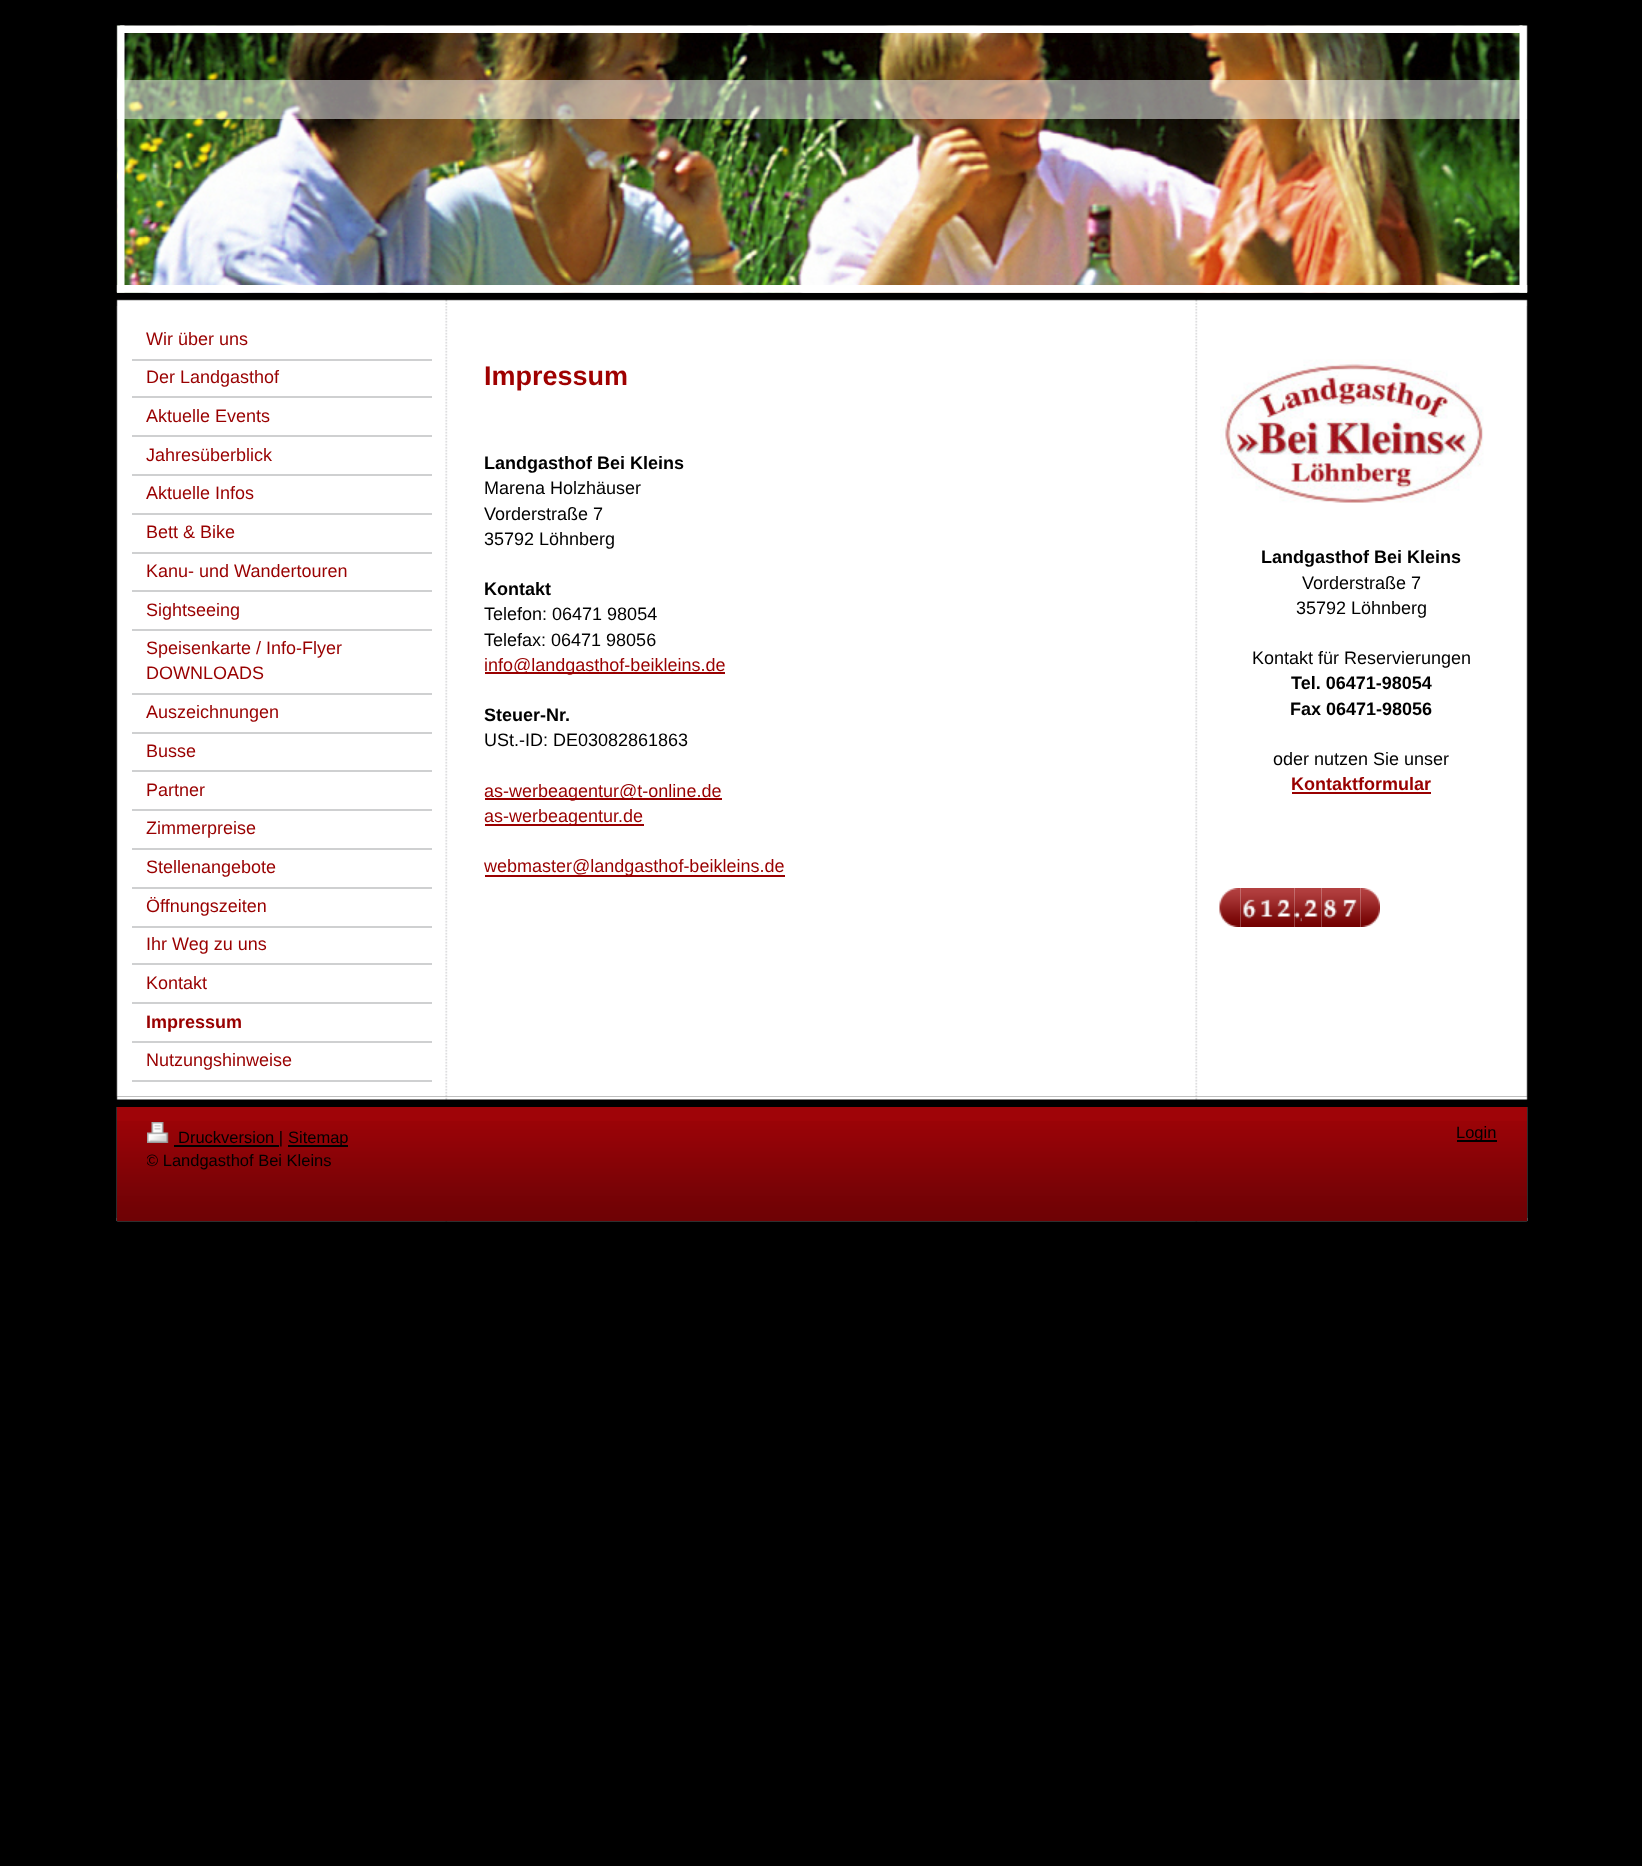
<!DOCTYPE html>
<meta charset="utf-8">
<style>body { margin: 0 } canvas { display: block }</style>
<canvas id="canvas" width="1642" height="1866"></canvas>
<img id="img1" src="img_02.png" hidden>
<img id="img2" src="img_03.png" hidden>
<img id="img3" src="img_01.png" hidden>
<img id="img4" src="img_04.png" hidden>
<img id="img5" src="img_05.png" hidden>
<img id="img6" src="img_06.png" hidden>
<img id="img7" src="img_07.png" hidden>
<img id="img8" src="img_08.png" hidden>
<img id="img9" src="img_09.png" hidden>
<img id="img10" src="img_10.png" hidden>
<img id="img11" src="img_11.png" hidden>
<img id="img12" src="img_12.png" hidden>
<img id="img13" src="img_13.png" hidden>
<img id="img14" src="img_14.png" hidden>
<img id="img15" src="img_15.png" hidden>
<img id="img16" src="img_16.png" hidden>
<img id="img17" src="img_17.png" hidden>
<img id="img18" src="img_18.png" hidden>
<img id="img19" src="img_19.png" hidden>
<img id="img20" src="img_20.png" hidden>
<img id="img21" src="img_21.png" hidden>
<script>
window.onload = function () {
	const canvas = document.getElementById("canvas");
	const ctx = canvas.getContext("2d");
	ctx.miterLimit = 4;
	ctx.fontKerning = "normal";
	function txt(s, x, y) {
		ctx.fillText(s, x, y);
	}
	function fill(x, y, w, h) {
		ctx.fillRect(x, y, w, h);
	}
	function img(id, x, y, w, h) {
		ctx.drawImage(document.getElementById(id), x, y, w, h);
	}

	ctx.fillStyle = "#000000";
	fill(0, 0, 1642, 1866);
	ctx.fillStyle = "#EEEEEE";
	fill(117, 292, 1410, 1);
	img("img1", 117, 25, 1410, 268);
	ctx.fillStyle = "rgba(255, 255, 255, 0.5)";
	fill(117, 80, 1410, 39);
	img("img2", 118, 25, 1405, 8);
	img("img3", 116, 25, 9, 268);
	img("img4", 1519, 25, 9, 268);
	img("img5", 116, 285, 1412, 8);
	img("img6", 116, 299, 1412, 7);
	img("img7", 116, 1096, 1412, 4);
	img("img8", 116, 306, 1412, 791);
	ctx.fillStyle = "#CFD0D1";
	fill(132, 359, 300, 2);
	fill(132, 396, 300, 2);
	fill(132, 435, 300, 2);
	fill(132, 474, 300, 2);
	fill(132, 513, 300, 2);
	fill(132, 552, 300, 2);
	fill(132, 590, 300, 2);
	fill(132, 629, 300, 2);
	fill(132, 693, 300, 2);
	fill(132, 732, 300, 2);
	fill(132, 770, 300, 2);
	fill(132, 809, 300, 2);
	fill(132, 848, 300, 2);
	fill(132, 887, 300, 2);
	fill(132, 926, 300, 2);
	fill(132, 963, 300, 2);
	fill(132, 1002, 300, 2);
	fill(132, 1041, 300, 2);
	fill(132, 1080, 300, 2);
	ctx.fillStyle = "#990000";
	fill(485, 672, 240, 2);
	fill(485, 798, 237, 2);
	fill(485, 824, 159, 2);
	fill(485, 875, 300, 2);
	img("img9", 1220, 359, 264, 144);
	fill(1292, 792, 139, 2);
	img("img10", 1219, 888, 22, 39);
	img("img11", 1240, 888, 20, 39);
	img("img12", 1260, 888, 15, 39);
	img("img13", 1275, 888, 20, 39);
	img("img14", 1294, 888, 8, 39);
	img("img13", 1302, 888, 20, 39);
	img("img15", 1321, 888, 20, 39);
	img("img16", 1341, 888, 20, 39);
	img("img17", 1360, 888, 20, 39);
	img("img18", 116, 1218, 1412, 4);
	img("img19", 116, 1107, 1412, 114);
	ctx.fillStyle = "#9F0408";
	fill(117, 1107, 1410, 114);
	img("img20", 117, 1121, 1410, 100);
	img("img21", 147, 1122, 22, 21);
	ctx.fillStyle = "#000000";
	fill(174, 1145, 105, 2);
	fill(288, 1145, 60, 2);
	fill(1457, 1140, 40, 2);
	ctx.font = "18px Liberation Sans";
	ctx.fillStyle = "#990000";
	txt("Wir über uns", 146, 345);
	txt("Der Landgasthof", 146, 383);
	txt("Aktuelle Events", 146, 422);
	txt("Jahresüberblick", 146, 461);
	txt("Aktuelle Infos", 146, 499);
	txt("Bett & Bike", 146, 538);
	txt("Kanu- und Wandertouren", 146, 577);
	txt("Sightseeing", 146, 616);
	txt("Speisenkarte / Info-Flyer", 146, 654);
	txt("DOWNLOADS", 146, 679);
	txt("Auszeichnungen", 146, 718);
	txt("Busse", 146, 757);
	txt("Partner", 146, 796);
	txt("Zimmerpreise", 146, 834);
	txt("Stellenangebote", 146, 873);
	txt("Öffnungszeiten", 146, 912);
	txt("Ihr Weg zu uns", 146, 950);
	txt("Kontakt", 146, 989);
	ctx.font = "bold 18px Liberation Sans";
	txt("Impressum", 146, 1028);
	ctx.font = "18px Liberation Sans";
	txt("Nutzungshinweise", 146, 1066);
	ctx.font = "bold 27px Liberation Sans";
	ctx.fillStyle = "#9F0000";
	txt("Impressum", 484, 385);
	ctx.font = "bold 18px Liberation Sans";
	ctx.fillStyle = "#000000";
	txt("Landgasthof Bei Kleins", 484, 469);
	ctx.font = "18px Liberation Sans";
	txt("Marena Holzhäuser", 484, 494);
	txt("Vorderstraße 7", 484, 520);
	txt("35792 Löhnberg", 484, 545);
	ctx.font = "bold 18px Liberation Sans";
	txt("Kontakt", 484, 595);
	ctx.font = "18px Liberation Sans";
	txt("Telefon: 06471 98054", 484, 620);
	txt("Telefax: 06471 98056", 484, 646);
	ctx.fillStyle = "#990000";
	txt("info@landgasthof-beikleins.de", 484, 671);
	ctx.font = "bold 18px Liberation Sans";
	ctx.fillStyle = "#000000";
	txt("Steuer-Nr.", 484, 721);
	ctx.font = "18px Liberation Sans";
	txt("USt.-ID: DE03082861863", 484, 746);
	ctx.fillStyle = "#990000";
	txt("as-werbeagentur@t-online.de", 484, 797);
	txt("as-werbeagentur.de", 484, 822);
	txt("webmaster@landgasthof-beikleins.de", 484, 872);
	ctx.font = "bold 18px Liberation Sans";
	ctx.fillStyle = "#000000";
	txt("Landgasthof Bei Kleins", 1261, 563);
	ctx.font = "18px Liberation Sans";
	txt("Vorderstraße 7", 1302, 589);
	txt("35792 Löhnberg", 1296, 614);
	txt("Kontakt für Reservierungen", 1252, 664);
	ctx.font = "bold 18px Liberation Sans";
	txt("Tel. 06471-98054", 1291, 689);
	txt("Fax 06471-98056", 1290, 715);
	ctx.font = "18px Liberation Sans";
	txt("oder nutzen Sie unser", 1273, 765);
	ctx.font = "bold 18px Liberation Sans";
	ctx.fillStyle = "#990000";
	txt("Kontaktformular", 1291, 790);
	ctx.font = "16.5px Liberation Sans";
	ctx.fillStyle = "#000000";
	txt("Druckversion |", 178, 1143);
	txt("Sitemap", 288, 1143);
	ctx.save();
	ctx.beginPath();
	ctx.rect(147, 1122, 1350, 74);
	ctx.clip();
	txt("© Landgasthof Bei Kleins", 146, 1166);
	ctx.restore();
	txt("Login", 1456, 1138);
};
</script>
